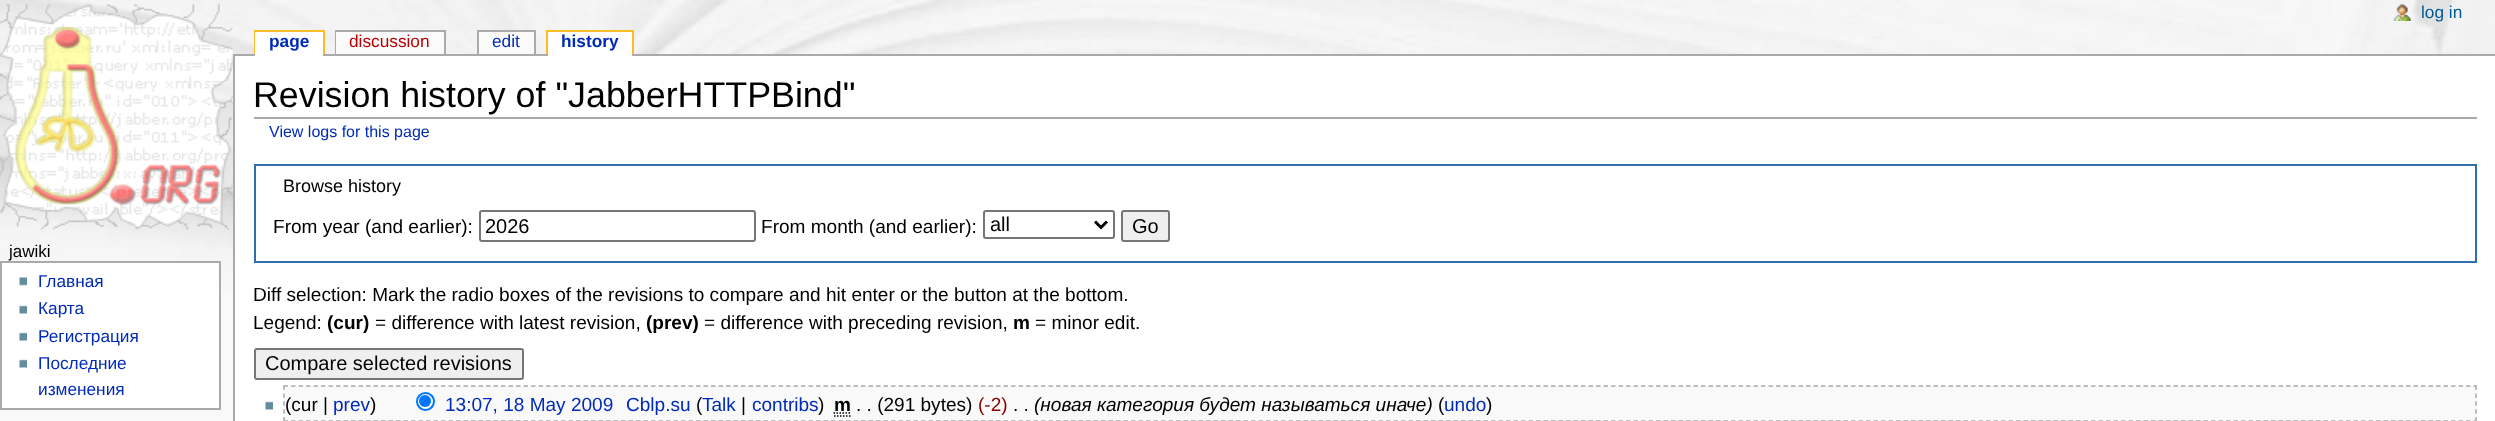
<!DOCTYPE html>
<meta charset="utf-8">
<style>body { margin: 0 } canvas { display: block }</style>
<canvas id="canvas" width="2495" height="421"></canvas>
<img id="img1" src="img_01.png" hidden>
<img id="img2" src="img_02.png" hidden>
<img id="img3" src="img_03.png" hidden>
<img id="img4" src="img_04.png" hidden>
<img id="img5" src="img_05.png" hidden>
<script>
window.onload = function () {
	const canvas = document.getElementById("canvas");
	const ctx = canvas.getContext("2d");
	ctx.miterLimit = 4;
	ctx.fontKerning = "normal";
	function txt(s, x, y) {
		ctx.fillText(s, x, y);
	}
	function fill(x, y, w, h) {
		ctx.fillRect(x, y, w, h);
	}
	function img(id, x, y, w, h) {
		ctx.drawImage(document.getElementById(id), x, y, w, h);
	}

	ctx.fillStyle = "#F9F9F9";
	fill(0, 0, 2495, 421);
	img("img1", 0, 0, 2495, 292);
	img("img2", 0, 4, 233, 226);
	img("img3", 2393, 4, 18, 17);
	ctx.fillStyle = "#FABD23";
	fill(254, 30, 70, 2);
	fill(323, 30, 2, 24);
	fill(254, 30, 2, 24);
	ctx.fillStyle = "#AAAAAA";
	fill(233, 54, 2262, 2);
	ctx.fillStyle = "#FFFFFF";
	fill(255, 32, 68, 24);
	ctx.fillStyle = "#AAAAAA";
	fill(335, 30, 111, 2);
	fill(444, 30, 2, 24);
	fill(335, 30, 2, 24);
	ctx.fillStyle = "#FBFBFB";
	fill(336, 32, 108, 22);
	ctx.fillStyle = "#AAAAAA";
	fill(477, 30, 59, 2);
	fill(534, 30, 2, 24);
	fill(477, 30, 2, 24);
	ctx.fillStyle = "#FBFBFB";
	fill(479, 32, 55, 22);
	ctx.fillStyle = "#FABD23";
	fill(546, 30, 87, 2);
	fill(632, 30, 2, 24);
	fill(546, 30, 2, 24);
	ctx.fillStyle = "#FFFFFF";
	fill(548, 32, 84, 24);
	ctx.beginPath();
	ctx.rect(1, 262, 219, 147);
	ctx.fill();
	ctx.strokeStyle = "#AAAAAA";
	ctx.lineWidth = 2;
	ctx.stroke();
	img("img4", 19, 277, 8, 9);
	img("img5", 19, 305, 8, 9);
	img("img5", 19, 332, 8, 9);
	img("img5", 19, 359, 8, 9);
	fill(235, 56, 2260, 365);
	ctx.fillStyle = "#AAAAAA";
	fill(233, 54, 2, 367);
	fill(254, 117, 2223, 2);
	ctx.strokeStyle = "#2F6FAB";
	ctx.strokeRect(255, 165, 2221, 97);
	ctx.beginPath();
	ctx.roundRect(480, 211, 275, 30, 2);
	ctx.strokeStyle = "#767676";
	ctx.stroke();
	ctx.beginPath();
	ctx.roundRect(984, 211, 130, 27, 2);
	ctx.stroke();
	ctx.beginPath();
	ctx.moveTo(1095, 221.5);
	ctx.lineTo(1101, 227.5);
	ctx.lineTo(1107, 221.5);
	ctx.strokeStyle = "#000000";
	ctx.lineWidth = 3;
	ctx.stroke();
	ctx.fillStyle = "#EFEFEF";
	ctx.beginPath();
	ctx.roundRect(1122, 211, 47, 30, 2);
	ctx.fill();
	ctx.strokeStyle = "#767676";
	ctx.lineWidth = 2;
	ctx.stroke();
	ctx.beginPath();
	ctx.roundRect(255, 349, 268, 30, 2);
	ctx.fill();
	ctx.stroke();
	ctx.fillStyle = "#F9F9F9";
	fill(284, 386, 2193, 35);
	ctx.beginPath();
	ctx.moveTo(283.5, 386);
	ctx.lineTo(2476.5, 386);
	ctx.strokeStyle = "#AAAAAA";
	ctx.lineWidth = 1.5;
	ctx.setLineDash([4.5, 3]);
	ctx.stroke();
	ctx.beginPath();
	ctx.moveTo(2476, 385.5);
	ctx.lineTo(2476, 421.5);
	ctx.setLineDash([4.5, 3.38]);
	ctx.stroke();
	ctx.beginPath();
	ctx.moveTo(283.5, 421);
	ctx.lineTo(2476.5, 421);
	ctx.setLineDash([4.5, 3]);
	ctx.stroke();
	ctx.beginPath();
	ctx.moveTo(284, 385.5);
	ctx.lineTo(284, 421.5);
	ctx.setLineDash([4.5, 3.38]);
	ctx.stroke();
	img("img5", 265, 401, 8, 9);
	ctx.fillStyle = "#FFFFFF";
	ctx.beginPath();
	ctx.arc(425.5, 401.5, 8.5, 0, Math.PI * 2);
	ctx.fill();
	ctx.strokeStyle = "#0075FF";
	ctx.lineWidth = 2;
	ctx.setLineDash([]);
	ctx.stroke();
	ctx.fillStyle = "#0075FF";
	ctx.beginPath();
	ctx.arc(425, 401, 6, 0, Math.PI * 2);
	ctx.fill();
	ctx.beginPath();
	ctx.moveTo(834, 416);
	ctx.lineTo(850.5, 416);
	ctx.moveTo(833.5, 413);
	ctx.lineTo(850.5, 413);
	ctx.strokeStyle = "#000000";
	ctx.lineWidth = 1.5;
	ctx.setLineDash([1.5, 1.5]);
	ctx.stroke();
	ctx.font = "17.25px Liberation Sans";
	ctx.fillStyle = "#005896";
	txt("log in", 2421, 18);
	ctx.font = "bold 17.25px Liberation Sans";
	ctx.fillStyle = "#002BB8";
	txt("page", 269, 47);
	ctx.font = "17.25px Liberation Sans";
	ctx.fillStyle = "#BA0000";
	txt("discussion", 349, 47);
	ctx.fillStyle = "#002BB8";
	txt("edit", 492, 47);
	ctx.font = "bold 17.25px Liberation Sans";
	txt("history", 561, 47);
	ctx.font = "17px Liberation Sans";
	ctx.fillStyle = "#000000";
	txt("jawiki", 9, 257);
	ctx.font = "17.25px Liberation Sans";
	ctx.fillStyle = "#002BB8";
	txt("Главная", 38, 287);
	txt("Карта", 38, 314);
	txt("Регистрация", 38, 342);
	txt("Последние", 38, 369);
	txt("изменения", 38, 395);
	ctx.font = "35.8px Liberation Sans";
	ctx.fillStyle = "#000000";
	txt("Revision history of \"JabberHTTPBind\"", 253, 107);
	ctx.font = "16px Liberation Sans";
	ctx.fillStyle = "#002BB8";
	txt("View logs for this page", 269, 137);
	ctx.font = "18px Liberation Sans";
	ctx.fillStyle = "#000000";
	txt("Browse history", 283, 192);
	ctx.font = "19.05px Liberation Sans";
	txt("From year (and earlier):", 273, 233);
	ctx.font = "20px Liberation Sans";
	txt("2026", 485, 233);
	ctx.font = "19.05px Liberation Sans";
	txt("From month (and earlier):", 761, 233);
	ctx.font = "20px Liberation Sans";
	txt("all", 990, 231);
	txt("Go", 1132, 233);
	ctx.font = "19.05px Liberation Sans";
	txt("Diff selection: Mark the radio boxes of the revisions to compare and hit enter or the button at the bottom.", 253, 301);
	txt("Legend:", 253, 329);
	ctx.font = "bold 19.05px Liberation Sans";
	txt("(cur)", 327, 329);
	ctx.font = "19.05px Liberation Sans";
	txt("= difference with latest revision,", 375, 329);
	ctx.font = "bold 19.05px Liberation Sans";
	txt("(prev)", 646, 329);
	ctx.font = "19.05px Liberation Sans";
	txt("= difference with preceding revision,", 704, 329);
	ctx.font = "bold 19.05px Liberation Sans";
	txt("m", 1013, 329);
	ctx.font = "19.05px Liberation Sans";
	txt("= minor edit.", 1035, 329);
	ctx.font = "20px Liberation Sans";
	txt("Compare selected revisions", 265, 370);
	ctx.font = "19.05px Liberation Sans";
	txt("(cur |", 285, 411);
	ctx.fillStyle = "#002BB8";
	txt("prev", 333, 411);
	ctx.fillStyle = "#000000";
	txt(")", 370, 411);
	ctx.fillStyle = "#002BB8";
	txt("13:07, 18 May 2009", 445, 411);
	txt("Cblp.su", 626, 411);
	ctx.fillStyle = "#000000";
	txt("(", 696, 411);
	ctx.fillStyle = "#002BB8";
	txt("Talk", 702, 411);
	ctx.fillStyle = "#000000";
	txt("|", 741, 411);
	ctx.fillStyle = "#002BB8";
	txt("contribs", 752, 411);
	ctx.fillStyle = "#000000";
	txt(")", 818, 411);
	ctx.font = "bold 19.05px Liberation Sans";
	txt("m", 834, 411);
	ctx.font = "19.05px Liberation Sans";
	txt(". . (291 bytes)", 856, 411);
	ctx.fillStyle = "#8B0000";
	txt("(-2)", 978, 411);
	ctx.fillStyle = "#000000";
	txt(". .", 1013, 411);
	ctx.font = "italic 19.05px Liberation Sans";
	txt("(новая категория будет называться иначе)", 1034, 411);
	ctx.font = "19.05px Liberation Sans";
	txt("(", 1438, 411);
	ctx.fillStyle = "#002BB8";
	txt("undo", 1444, 411);
	ctx.fillStyle = "#000000";
	txt(")", 1486, 411);
};
</script>
